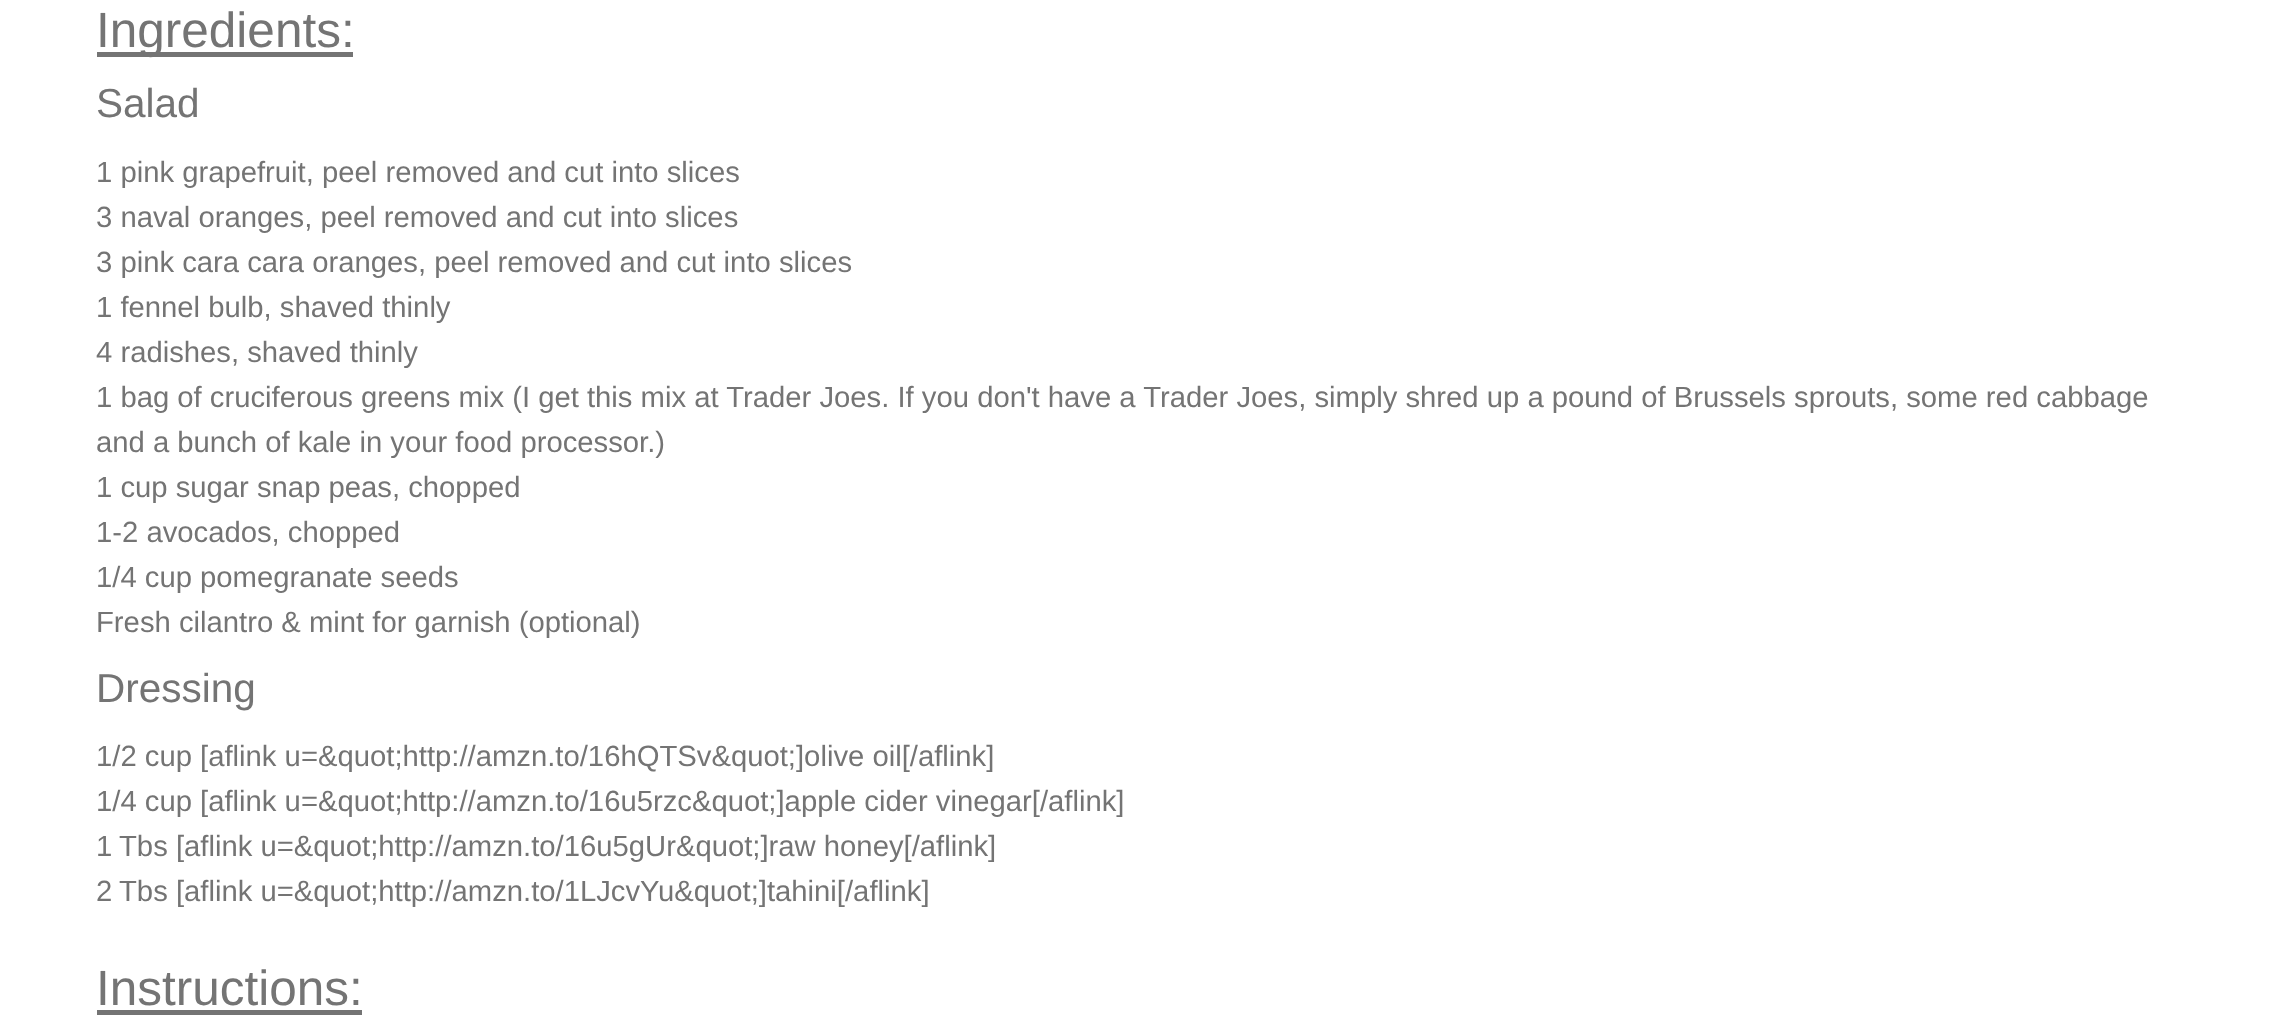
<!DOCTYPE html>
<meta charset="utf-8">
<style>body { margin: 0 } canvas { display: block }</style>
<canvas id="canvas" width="2282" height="1020"></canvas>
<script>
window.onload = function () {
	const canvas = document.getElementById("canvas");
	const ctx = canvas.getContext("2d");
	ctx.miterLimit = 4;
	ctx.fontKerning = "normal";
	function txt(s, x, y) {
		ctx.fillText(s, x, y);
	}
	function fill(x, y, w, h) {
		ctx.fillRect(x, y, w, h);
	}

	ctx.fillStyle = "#FFFFFF";
	fill(0, 0, 2282, 1020);
	ctx.fillStyle = "#747474";
	fill(97, 52, 256, 5);
	fill(97, 1010, 265, 5);
	ctx.font = "49.5px Liberation Sans";
	txt("Ingredients:", 96, 47);
	ctx.font = "40.5px Liberation Sans";
	txt("Salad", 96, 117);
	ctx.font = "29.25px Liberation Sans";
	txt("1 pink grapefruit, peel removed and cut into slices", 96, 182);
	txt("3 naval oranges, peel removed and cut into slices", 96, 227);
	txt("3 pink cara cara oranges, peel removed and cut into slices", 96, 272);
	txt("1 fennel bulb, shaved thinly", 96, 317);
	txt("4 radishes, shaved thinly", 96, 362);
	txt("1 bag of cruciferous greens mix (I get this mix at Trader Joes. If you don't have a Trader Joes, simply shred up a pound of Brussels sprouts, some red cabbage", 96, 407);
	txt("and a bunch of kale in your food processor.)", 96, 452);
	txt("1 cup sugar snap peas, chopped", 96, 497);
	txt("1-2 avocados, chopped", 96, 542);
	txt("1/4 cup pomegranate seeds", 96, 587);
	txt("Fresh cilantro & mint for garnish (optional)", 96, 632);
	ctx.font = "40.5px Liberation Sans";
	txt("Dressing", 96, 702);
	ctx.font = "29.25px Liberation Sans";
	txt("1/2 cup [aflink u=&quot;http://amzn.to/16hQTSv&quot;]olive oil[/aflink]", 96, 766);
	txt("1/4 cup [aflink u=&quot;http://amzn.to/16u5rzc&quot;]apple cider vinegar[/aflink]", 96, 811);
	txt("1", 96, 856);
	txt("Tbs [aflink u=&quot;http://amzn.to/16u5gUr&quot;]raw honey[/aflink]", 119, 856);
	txt("2", 96, 901);
	txt("Tbs [aflink u=&quot;http://amzn.to/1LJcvYu&quot;]tahini[/aflink]", 119, 901);
	ctx.font = "49.5px Liberation Sans";
	txt("Instructions:", 96, 1005);
};
</script>
